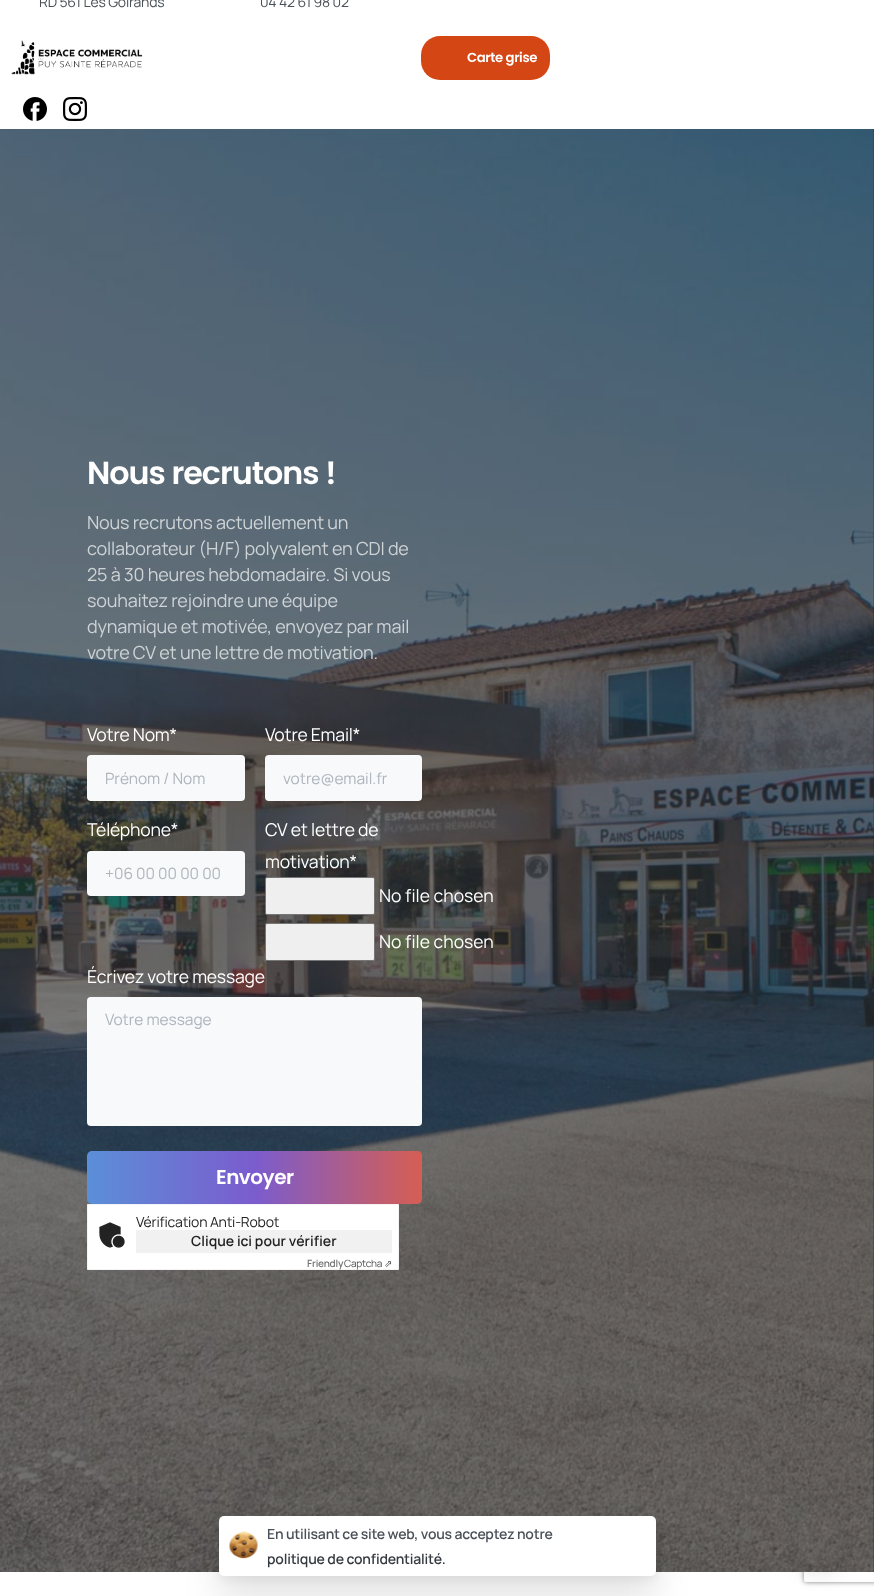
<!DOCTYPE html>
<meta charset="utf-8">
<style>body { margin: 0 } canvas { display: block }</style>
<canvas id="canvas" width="874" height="1596"></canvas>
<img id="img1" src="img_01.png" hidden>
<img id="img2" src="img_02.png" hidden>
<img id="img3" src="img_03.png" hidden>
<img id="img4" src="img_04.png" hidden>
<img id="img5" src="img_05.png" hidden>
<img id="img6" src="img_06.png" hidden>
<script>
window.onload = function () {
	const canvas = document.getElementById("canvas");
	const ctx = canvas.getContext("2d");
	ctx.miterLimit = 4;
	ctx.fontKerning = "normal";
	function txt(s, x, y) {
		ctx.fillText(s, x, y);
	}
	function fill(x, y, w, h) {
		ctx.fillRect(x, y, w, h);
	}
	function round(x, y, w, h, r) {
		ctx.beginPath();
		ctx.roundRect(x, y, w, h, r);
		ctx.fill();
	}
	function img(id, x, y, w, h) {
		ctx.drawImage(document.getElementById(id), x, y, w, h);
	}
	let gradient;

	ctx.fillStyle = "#FFFFFF";
	fill(0, 0, 874, 1596);
	img("img1", 11, 40, 132, 35);
	ctx.fillStyle = "#D44614";
	round(421, 36, 129, 44, 19);
	img("img2", 23, 97, 24, 24);
	img("img3", 63, 97, 24, 24);
	ctx.save();
	ctx.beginPath();
	ctx.moveTo(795, 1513);
	ctx.lineTo(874, 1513);
	ctx.lineTo(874, 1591);
	ctx.lineTo(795, 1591);
	ctx.closePath();
	ctx.moveTo(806, 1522);
	ctx.lineTo(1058, 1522);
	ctx.bezierCurveTo(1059, 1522, 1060, 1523, 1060, 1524);
	ctx.lineTo(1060, 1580);
	ctx.bezierCurveTo(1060, 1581, 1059, 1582, 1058, 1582);
	ctx.lineTo(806, 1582);
	ctx.bezierCurveTo(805, 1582, 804, 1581, 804, 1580);
	ctx.lineTo(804, 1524);
	ctx.bezierCurveTo(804, 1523, 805, 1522, 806, 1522);
	ctx.closePath();
	ctx.clip("evenodd");
	ctx.fillStyle = "#808080";
	ctx.filter = "blur(2.5px)";
	ctx.beginPath();
	ctx.roundRect(804, 1522, 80, 60, 2);
	ctx.fill();
	ctx.filter = "none";
	ctx.restore();
	ctx.fillStyle = "#212529";
	fill(0, 129, 874, 1443);
	img("img4", 0, 129, 874, 1443);
	ctx.fillStyle = "#F8F9FA";
	round(87, 755, 158, 46, 4);
	round(265, 755, 157, 46, 4);
	round(87, 851, 158, 45, 4);
	ctx.fillStyle = "#EFEFEF";
	ctx.beginPath();
	ctx.roundRect(265.5, 877.5, 109, 37, 1.5);
	ctx.fill();
	ctx.strokeStyle = "#767676";
	ctx.stroke();
	ctx.beginPath();
	ctx.roundRect(265.5, 923.5, 109, 37, 1.5);
	ctx.fill();
	ctx.stroke();
	ctx.fillStyle = "#F8F9FA";
	round(87, 997, 335, 129, 4);
	gradient = ctx.createLinearGradient(87, 1178, 422, 1178);
	gradient.addColorStop(0, "#5B8FD8");
	gradient.addColorStop(0.5, "#7B5CCE");
	gradient.addColorStop(1, "#D65E53");
	ctx.fillStyle = gradient;
	round(87, 1151, 335, 53, 5);
	ctx.fillStyle = "#FFFFFF";
	ctx.beginPath();
	ctx.rect(87.5, 1204.5, 311, 65);
	ctx.fill();
	ctx.strokeStyle = "#F4F4F4";
	ctx.stroke();
	img("img5", 99, 1222, 26, 26);
	ctx.fillStyle = "#F1F1F1";
	fill(136, 1230, 256, 23);
	ctx.save();
	ctx.beginPath();
	ctx.moveTo(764, 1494);
	ctx.lineTo(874, 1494);
	ctx.lineTo(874, 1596);
	ctx.lineTo(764, 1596);
	ctx.closePath();
	ctx.moveTo(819, 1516);
	ctx.bezierCurveTo(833, 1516, 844, 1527, 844, 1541);
	ctx.bezierCurveTo(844, 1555, 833, 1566, 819, 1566);
	ctx.bezierCurveTo(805, 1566, 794, 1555, 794, 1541);
	ctx.bezierCurveTo(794, 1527, 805, 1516, 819, 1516);
	ctx.closePath();
	ctx.clip("evenodd");
	ctx.fillStyle = "rgba(0, 0, 0, 0.1)";
	ctx.filter = "blur(9.5px)";
	ctx.beginPath();
	ctx.roundRect(794, 1524, 50, 50, 25);
	ctx.fill();
	ctx.filter = "none";
	ctx.restore();
	ctx.fillStyle = "rgba(0, 0, 0, 0.1)";
	ctx.filter = "blur(17.5px)";
	ctx.beginPath();
	ctx.roundRect(219, 1540, 437, 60, 5);
	ctx.fill();
	ctx.filter = "none";
	ctx.fillStyle = "rgba(0, 0, 0, 0.05)";
	ctx.filter = "blur(4px)";
	ctx.beginPath();
	ctx.roundRect(219, 1520, 437, 60, 5);
	ctx.fill();
	ctx.filter = "none";
	ctx.fillStyle = "#FFFFFF";
	round(219, 1516, 437, 60, 5);
	img("img6", 229, 1531, 29, 28);
	ctx.letterSpacing = "-0.2px";
	ctx.font = "14px Manrope";
	ctx.fillStyle = "#495057";
	txt("RD 561 Les Goirands", 39, 7);
	txt("04 42 61 98 02", 260, 7);
	ctx.letterSpacing = "-0.4px";
	ctx.font = "600 13.25px Poppins";
	ctx.fillStyle = "#FFFFFF";
	txt("Carte grise", 467, 62);
	ctx.letterSpacing = "-1px";
	ctx.font = "600 31.75px Poppins";
	txt("Nous recrutons !", 87, 484);
	ctx.letterSpacing = "-0.2px";
	ctx.font = "18px Manrope";
	ctx.fillStyle = "#CED3D6";
	txt("Nous recrutons actuellement un", 87, 529);
	txt("collaborateur (H/F) polyvalent en CDI de", 87, 555);
	txt("25 à 30 heures hebdomadaire. Si vous", 87, 581);
	txt("souhaitez rejoindre une équipe", 87, 607);
	txt("dynamique et motivée, envoyez par mail", 87, 633);
	txt("votre CV et une lettre de motivation.", 87, 659);
	ctx.font = "17.6px Manrope";
	ctx.fillStyle = "#FFFFFF";
	txt("Votre Nom*", 87, 741);
	ctx.letterSpacing = "0px";
	ctx.font = "15.5px Manrope";
	ctx.fillStyle = "#ADB5BD";
	txt("Prénom / Nom", 105, 784);
	ctx.letterSpacing = "-0.2px";
	ctx.font = "17.6px Manrope";
	ctx.fillStyle = "#FFFFFF";
	txt("Votre Email*", 265, 741);
	ctx.letterSpacing = "0px";
	ctx.font = "15.5px Manrope";
	ctx.fillStyle = "#ADB5BD";
	txt("votre@email.fr", 283, 784);
	ctx.letterSpacing = "-0.2px";
	ctx.font = "17.6px Manrope";
	ctx.fillStyle = "#FFFFFF";
	txt("Téléphone*", 87, 836);
	ctx.letterSpacing = "0px";
	ctx.font = "15.5px Manrope";
	ctx.fillStyle = "#ADB5BD";
	txt("+06 00 00 00 00", 105, 879);
	ctx.letterSpacing = "-0.2px";
	ctx.font = "17.6px Manrope";
	ctx.fillStyle = "#FFFFFF";
	txt("CV et lettre de", 265, 836);
	txt("motivation*", 265, 868);
	ctx.letterSpacing = "0px";
	txt("No file chosen", 379, 902);
	txt("No file chosen", 379, 948);
	ctx.letterSpacing = "-0.2px";
	txt("Écrivez votre message", 87, 983);
	ctx.letterSpacing = "0px";
	ctx.font = "15.5px Manrope";
	ctx.fillStyle = "#ADB5BD";
	txt("Votre message", 105, 1025);
	ctx.letterSpacing = "-0.5px";
	ctx.font = "600 20px Poppins";
	ctx.fillStyle = "#FFFFFF";
	txt("Envoyer", 216, 1184);
	ctx.letterSpacing = "-0.2px";
	ctx.font = "14px Manrope";
	ctx.fillStyle = "#222222";
	txt("Vérification Anti-Robot", 136, 1227);
	ctx.letterSpacing = "0px";
	ctx.font = "600 14px Manrope";
	txt("Clique ici pour vérifier", 191, 1246);
	ctx.letterSpacing = "-0.2px";
	ctx.font = "600 10px Manrope";
	ctx.fillStyle = "#727272";
	txt("Friendly", 307, 1267);
	ctx.font = "10px Manrope";
	ctx.fillStyle = "#4E4E4E";
	txt("Captcha", 344, 1267);
	ctx.font = "10px DejaVu Sans";
	txt("⇗", 384, 1267);
	ctx.font = "600 14px Manrope";
	ctx.fillStyle = "#495057";
	txt("En utilisant ce site web, vous acceptez notre", 267, 1539);
	ctx.fillStyle = "#343A40";
	txt("politique de confidentialité.", 267, 1564);
};
</script>
